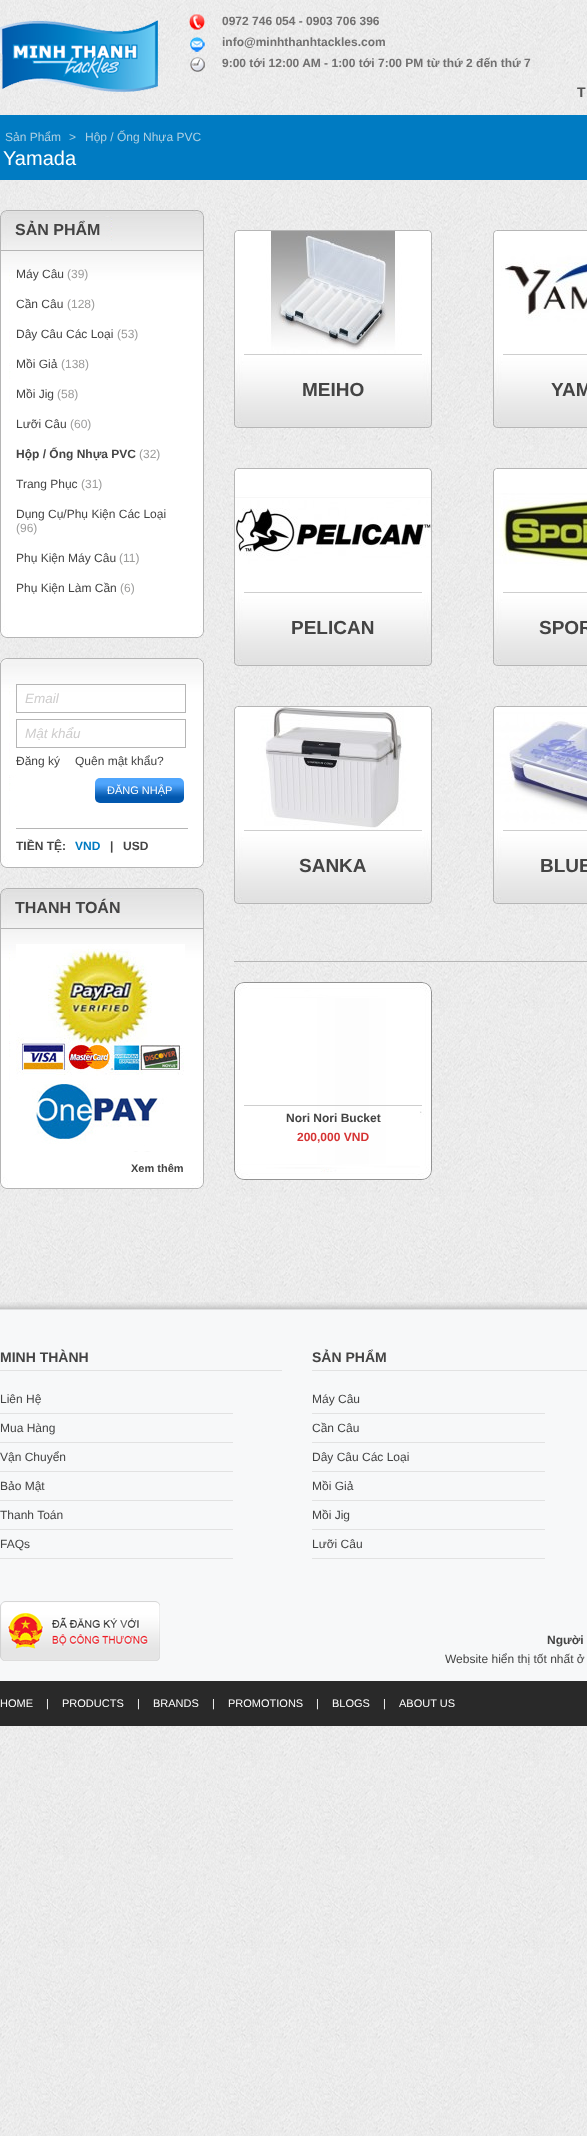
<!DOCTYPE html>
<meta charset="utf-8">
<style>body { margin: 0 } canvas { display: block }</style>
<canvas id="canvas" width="587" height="2136"></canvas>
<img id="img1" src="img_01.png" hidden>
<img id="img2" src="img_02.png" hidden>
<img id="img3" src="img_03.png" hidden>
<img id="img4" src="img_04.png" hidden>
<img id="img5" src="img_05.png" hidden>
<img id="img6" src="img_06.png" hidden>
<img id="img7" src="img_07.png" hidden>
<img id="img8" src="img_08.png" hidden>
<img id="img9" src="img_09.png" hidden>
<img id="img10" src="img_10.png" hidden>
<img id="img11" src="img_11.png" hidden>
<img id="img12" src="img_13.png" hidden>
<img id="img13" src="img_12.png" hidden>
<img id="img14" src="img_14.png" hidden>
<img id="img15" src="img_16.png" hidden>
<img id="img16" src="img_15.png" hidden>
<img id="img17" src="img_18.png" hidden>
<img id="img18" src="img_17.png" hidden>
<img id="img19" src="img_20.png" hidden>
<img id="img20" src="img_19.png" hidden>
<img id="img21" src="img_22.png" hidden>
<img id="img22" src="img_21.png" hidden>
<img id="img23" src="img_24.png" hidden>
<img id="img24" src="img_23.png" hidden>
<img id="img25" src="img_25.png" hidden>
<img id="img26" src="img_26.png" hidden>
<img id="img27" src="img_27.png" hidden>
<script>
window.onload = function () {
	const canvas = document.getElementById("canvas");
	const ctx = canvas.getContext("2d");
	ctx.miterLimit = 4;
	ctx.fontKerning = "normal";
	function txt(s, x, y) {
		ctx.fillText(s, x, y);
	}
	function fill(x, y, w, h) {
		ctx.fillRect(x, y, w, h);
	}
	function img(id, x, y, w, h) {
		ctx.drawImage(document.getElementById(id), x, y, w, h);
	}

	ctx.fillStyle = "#FFFFFF";
	fill(0, 0, 587, 2136);
	img("img1", 0, 0, 587, 2136);
	img("img2", 0, 20, 158, 72);
	img("img3", 189, 14, 16, 58);
	ctx.fillStyle = "#007BC2";
	fill(0, 115, 587, 65);
	img("img4", 0, 603, 204, 35);
	img("img5", 0, 210, 204, 40);
	ctx.fillStyle = "#B5B5B5";
	fill(0, 250, 204, 1);
	ctx.fillStyle = "#FFFFFF";
	fill(1, 421, 202, 182);
	img("img6", 1, 251, 202, 170);
	ctx.fillStyle = "#B5B5B5";
	fill(203, 251, 1, 352);
	fill(0, 251, 1, 352);
	img("img7", 0, 658, 204, 5);
	img("img8", 0, 853, 204, 15);
	ctx.fillStyle = "#FFFFFF";
	fill(1, 833, 202, 20);
	img("img6", 1, 663, 202, 170);
	ctx.fillStyle = "#B5B5B5";
	fill(203, 663, 1, 190);
	fill(0, 663, 1, 190);
	fill(16, 828, 172, 1);
	ctx.strokeStyle = "#B5B5B5";
	ctx.strokeRect(16.5, 684.5, 169, 28);
	ctx.strokeRect(16.5, 719.5, 169, 28);
	img("img9", 95, 778, 89, 25);
	img("img8", 0, 1174, 204, 15);
	img("img5", 0, 888, 204, 40);
	fill(0, 928, 204, 1);
	ctx.fillStyle = "#FFFFFF";
	fill(1, 1099, 202, 75);
	img("img6", 1, 929, 202, 170);
	ctx.fillStyle = "#B5B5B5";
	fill(203, 929, 1, 245);
	fill(0, 929, 1, 245);
	img("img10", 16, 944, 169, 208);
	img("img11", 234, 354, 198, 74);
	img("img12", 235, 231, 196, 123);
	img("img13", 234, 230, 198, 124);
	ctx.fillStyle = "#CECECE";
	fill(244, 354, 178, 1);
	img("img14", 493, 354, 94, 74);
	img("img15", 494, 231, 93, 123);
	img("img16", 493, 230, 94, 124);
	fill(503, 354, 84, 1);
	img("img11", 234, 592, 198, 74);
	img("img17", 235, 469, 196, 123);
	img("img18", 234, 468, 198, 124);
	fill(244, 592, 178, 1);
	img("img14", 493, 592, 94, 74);
	img("img19", 494, 469, 93, 123);
	img("img20", 493, 468, 94, 124);
	fill(503, 592, 84, 1);
	img("img11", 234, 830, 198, 74);
	img("img21", 235, 707, 196, 123);
	img("img22", 234, 706, 198, 124);
	fill(244, 830, 178, 1);
	img("img14", 493, 830, 94, 74);
	img("img23", 494, 707, 93, 123);
	img("img24", 493, 706, 94, 124);
	fill(503, 830, 84, 1);
	ctx.fillStyle = "#B5B5B5";
	fill(234, 961, 353, 1);
	img("img25", 234, 982, 198, 198);
	ctx.fillStyle = "#CECECE";
	fill(244, 1105, 178, 1);
	img("img26", 0, 1302, 587, 37);
	ctx.fillStyle = "#F7F8F9";
	fill(0, 1339, 587, 342);
	ctx.fillStyle = "#E2E2E2";
	fill(0, 1370, 282, 1);
	fill(0, 1413, 233, 1);
	fill(0, 1442, 233, 1);
	fill(0, 1471, 233, 1);
	fill(0, 1500, 233, 1);
	fill(0, 1529, 233, 1);
	fill(0, 1558, 233, 1);
	fill(312, 1370, 275, 1);
	fill(312, 1413, 233, 1);
	fill(312, 1442, 233, 1);
	fill(312, 1471, 233, 1);
	fill(312, 1500, 233, 1);
	fill(312, 1529, 233, 1);
	fill(312, 1558, 233, 1);
	img("img27", 0, 1601, 160, 60);
	ctx.fillStyle = "#292929";
	fill(0, 1681, 587, 45);
	ctx.font = "bold 12px Liberation Sans";
	ctx.fillStyle = "#717070";
	txt("0972 746 054 - 0903 706 396", 222, 25);
	txt("info@minhthanhtackles.com", 222, 46);
	txt("9:00 tới 12:00 AM - 1:00 tới 7:00 PM từ thứ 2 đến thứ 7", 222, 67);
	ctx.font = "bold 14px Liberation Sans";
	ctx.fillStyle = "#545454";
	txt("T", 577, 97);
	ctx.font = "12px Liberation Sans";
	ctx.fillStyle = "#ADCFE2";
	txt("Sản Phẩm", 5, 141);
	txt(">", 69, 141);
	txt("Hộp / Ống Nhựa PVC", 85, 141);
	ctx.font = "20px Liberation Sans";
	ctx.fillStyle = "#FFFFFF";
	txt("Yamada", 3, 165);
	ctx.font = "bold 16px Liberation Sans";
	ctx.fillStyle = "#444444";
	txt("SẢN PHẨM", 15, 235);
	ctx.font = "12px Liberation Sans";
	txt("Máy Câu", 16, 278);
	ctx.fillStyle = "#9C9C9B";
	txt("(39)", 67, 278);
	ctx.fillStyle = "#444444";
	txt("Cần Câu", 16, 308);
	ctx.fillStyle = "#9C9C9B";
	txt("(128)", 67, 308);
	ctx.fillStyle = "#444444";
	txt("Dây Câu Các Loại", 16, 338);
	ctx.fillStyle = "#9C9C9B";
	txt("(53)", 117, 338);
	ctx.fillStyle = "#444444";
	txt("Mồi Giả", 16, 368);
	ctx.fillStyle = "#9C9C9B";
	txt("(138)", 61, 368);
	ctx.fillStyle = "#444444";
	txt("Mồi Jig", 16, 398);
	ctx.fillStyle = "#9C9C9B";
	txt("(58)", 57, 398);
	ctx.fillStyle = "#444444";
	txt("Lưỡi Câu", 16, 428);
	ctx.fillStyle = "#9C9C9B";
	txt("(60)", 70, 428);
	ctx.font = "bold 12px Liberation Sans";
	ctx.fillStyle = "#444444";
	txt("Hộp / Ống Nhựa PVC", 16, 458);
	ctx.font = "12px Liberation Sans";
	ctx.fillStyle = "#9C9C9B";
	txt("(32)", 139, 458);
	ctx.fillStyle = "#444444";
	txt("Trang Phục", 16, 488);
	ctx.fillStyle = "#9C9C9B";
	txt("(31)", 81, 488);
	ctx.fillStyle = "#444444";
	txt("Dụng Cụ/Phụ Kiện Các Loại", 16, 518);
	ctx.fillStyle = "#9C9C9B";
	txt("(96)", 16, 532);
	ctx.fillStyle = "#444444";
	txt("Phụ Kiện Máy Câu", 16, 562);
	ctx.fillStyle = "#9C9C9B";
	txt("(11)", 119, 562);
	ctx.fillStyle = "#444444";
	txt("Phụ Kiện Làm Cần", 16, 592);
	ctx.fillStyle = "#9C9C9B";
	txt("(6)", 120, 592);
	ctx.font = "italic 13.5px Liberation Sans";
	ctx.fillStyle = "#CECDCD";
	txt("Email", 25, 703);
	txt("Mật khẩu", 25, 738);
	ctx.font = "12px Liberation Sans";
	ctx.fillStyle = "#444444";
	txt("Đăng ký", 16, 765);
	txt("Quên mật khẩu?", 75, 765);
	ctx.font = "11px Liberation Sans";
	ctx.fillStyle = "#FFFFFF";
	txt("ĐĂNG NHẬP", 107, 794);
	ctx.font = "bold 12px Liberation Sans";
	ctx.fillStyle = "#444444";
	txt("TIỀN TỆ:", 16, 850);
	ctx.fillStyle = "#007BC2";
	txt("VND", 75, 850);
	ctx.fillStyle = "#444444";
	txt("|", 110, 850);
	txt("USD", 123, 850);
	ctx.font = "bold 16px Liberation Sans";
	txt("THANH TOÁN", 15, 913);
	ctx.font = "bold 11px Liberation Sans";
	txt("Xem thêm", 131, 1172);
	ctx.font = "bold 19px Liberation Sans";
	txt("MEIHO", 302, 396);
	txt("YAM", 551, 396);
	txt("PELICAN", 291, 634);
	txt("SPOR", 539, 634);
	txt("SANKA", 299, 872);
	txt("BLUE", 540, 872);
	ctx.font = "bold 12px Liberation Sans";
	txt("Nori Nori Bucket", 286, 1122);
	ctx.fillStyle = "#D53333";
	txt("200,000 VND", 297, 1141);
	ctx.font = "bold 14px Liberation Sans";
	ctx.fillStyle = "#444444";
	txt("MINH THÀNH", 0, 1362);
	ctx.font = "12px Liberation Sans";
	txt("Liên Hệ", 0, 1403);
	txt("Mua Hàng", 0, 1432);
	txt("Vận Chuyển", 0, 1461);
	txt("Bảo Mật", 0, 1490);
	txt("Thanh Toán", 0, 1519);
	txt("FAQs", 0, 1548);
	ctx.font = "bold 14px Liberation Sans";
	txt("SẢN PHẨM", 312, 1362);
	ctx.font = "12px Liberation Sans";
	txt("Máy Câu", 312, 1403);
	txt("Cần Câu", 312, 1432);
	txt("Dây Câu Các Loại", 312, 1461);
	txt("Mồi Giả", 312, 1490);
	txt("Mồi Jig", 312, 1519);
	txt("Lưỡi Câu", 312, 1548);
	ctx.font = "bold 12px Liberation Sans";
	txt("Người", 547, 1644);
	ctx.font = "12px Liberation Sans";
	txt("Website hiển thị tốt nhất ở", 445, 1663);
	ctx.font = "11px Liberation Sans";
	ctx.fillStyle = "#FFFFFF";
	txt("HOME", 0, 1707);
	txt("|", 46, 1707);
	txt("PRODUCTS", 62, 1707);
	txt("|", 137, 1707);
	txt("BRANDS", 153, 1707);
	txt("|", 212, 1707);
	txt("PROMOTIONS", 228, 1707);
	txt("|", 316, 1707);
	txt("BLOGS", 332, 1707);
	txt("|", 383, 1707);
	txt("ABOUT US", 399, 1707);
};
</script>
